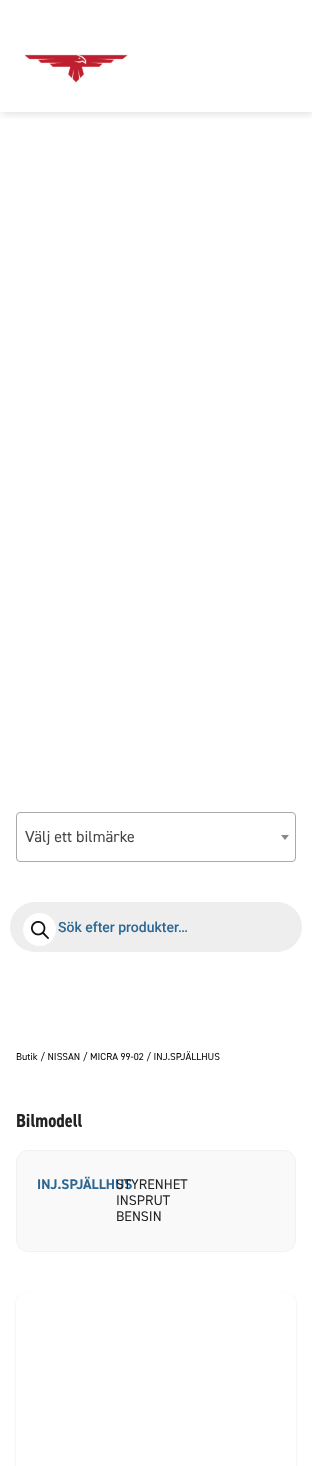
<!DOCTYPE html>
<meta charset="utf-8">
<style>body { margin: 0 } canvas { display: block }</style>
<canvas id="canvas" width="312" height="1466"></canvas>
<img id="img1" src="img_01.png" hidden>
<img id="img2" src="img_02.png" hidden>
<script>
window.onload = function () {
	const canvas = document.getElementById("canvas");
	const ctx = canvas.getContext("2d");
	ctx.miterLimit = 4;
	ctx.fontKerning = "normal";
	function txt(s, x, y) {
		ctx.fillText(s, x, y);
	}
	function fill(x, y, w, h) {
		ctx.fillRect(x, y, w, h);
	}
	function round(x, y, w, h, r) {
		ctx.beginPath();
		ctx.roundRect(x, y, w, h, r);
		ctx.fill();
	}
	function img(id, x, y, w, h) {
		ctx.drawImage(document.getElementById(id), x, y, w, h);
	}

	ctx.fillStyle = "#FFFFFF";
	fill(0, 0, 312, 1466);
	ctx.save();
	ctx.beginPath();
	ctx.rect(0, 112, 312, 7);
	ctx.clip();
	ctx.fillStyle = "rgba(0, 0, 0, 0.15)";
	ctx.filter = "blur(5px)";
	ctx.beginPath();
	ctx.rect(1, 1, 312, 112);
	ctx.fill();
	ctx.filter = "none";
	ctx.restore();
	img("img1", 24, 54, 104, 29);
	ctx.beginPath();
	ctx.roundRect(16.5, 812.5, 279, 49, 3.5);
	ctx.strokeStyle = "#AAAAAA";
	ctx.stroke();
	ctx.fillStyle = "#888888";
	ctx.beginPath();
	ctx.moveTo(281, 835);
	ctx.lineTo(289, 835);
	ctx.lineTo(285, 840);
	ctx.closePath();
	ctx.fill();
	ctx.fillStyle = "#EEEEEE";
	round(10, 902, 292, 50, 25);
	ctx.fillStyle = "#FFFFFF";
	ctx.beginPath();
	ctx.arc(39.5, 929.5, 16.5, 0, Math.PI * 2);
	ctx.fill();
	img("img2", 31, 921, 18, 18);
	ctx.fillStyle = "#F9F9F9";
	ctx.beginPath();
	ctx.roundRect(16.5, 1150.5, 279, 101, 11.5);
	ctx.fill();
	ctx.strokeStyle = "#F1F1F1";
	ctx.stroke();
	ctx.fillStyle = "rgba(0, 0, 0, 0.1)";
	ctx.filter = "blur(1px)";
	ctx.beginPath();
	ctx.roundRect(16, 1293, 280, 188, 12);
	ctx.fill();
	ctx.filter = "none";
	ctx.fillStyle = "#FFFFFF";
	round(16, 1292, 280, 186, 12);
	ctx.font = "16px 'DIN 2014'";
	ctx.fillStyle = "#444444";
	txt("Välj ett bilmärke", 25, 842);
	ctx.font = "500 14px Roboto";
	ctx.fillStyle = "#2D6691";
	txt("Sök efter produkter…", 58, 932);
	ctx.font = "10px 'DIN 2014'";
	ctx.fillStyle = "#000000";
	txt("Butik / NISSAN / MICRA 99-02 / INJ.SPJÄLLHUS", 16, 1060);
	ctx.font = "bold 19px 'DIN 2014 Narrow'";
	ctx.fillStyle = "#222222";
	txt("Bilmodell", 16, 1127);
	ctx.font = "bold 14px 'DIN 2014'";
	ctx.fillStyle = "#2D6691";
	txt("INJ.SPJÄLLHUS", 37, 1189);
	ctx.font = "14px 'DIN 2014'";
	ctx.fillStyle = "#222222";
	txt("STYRENHET", 116, 1189);
	txt("INSPRUT", 116, 1205);
	txt("BENSIN", 116, 1221);
};
</script>
